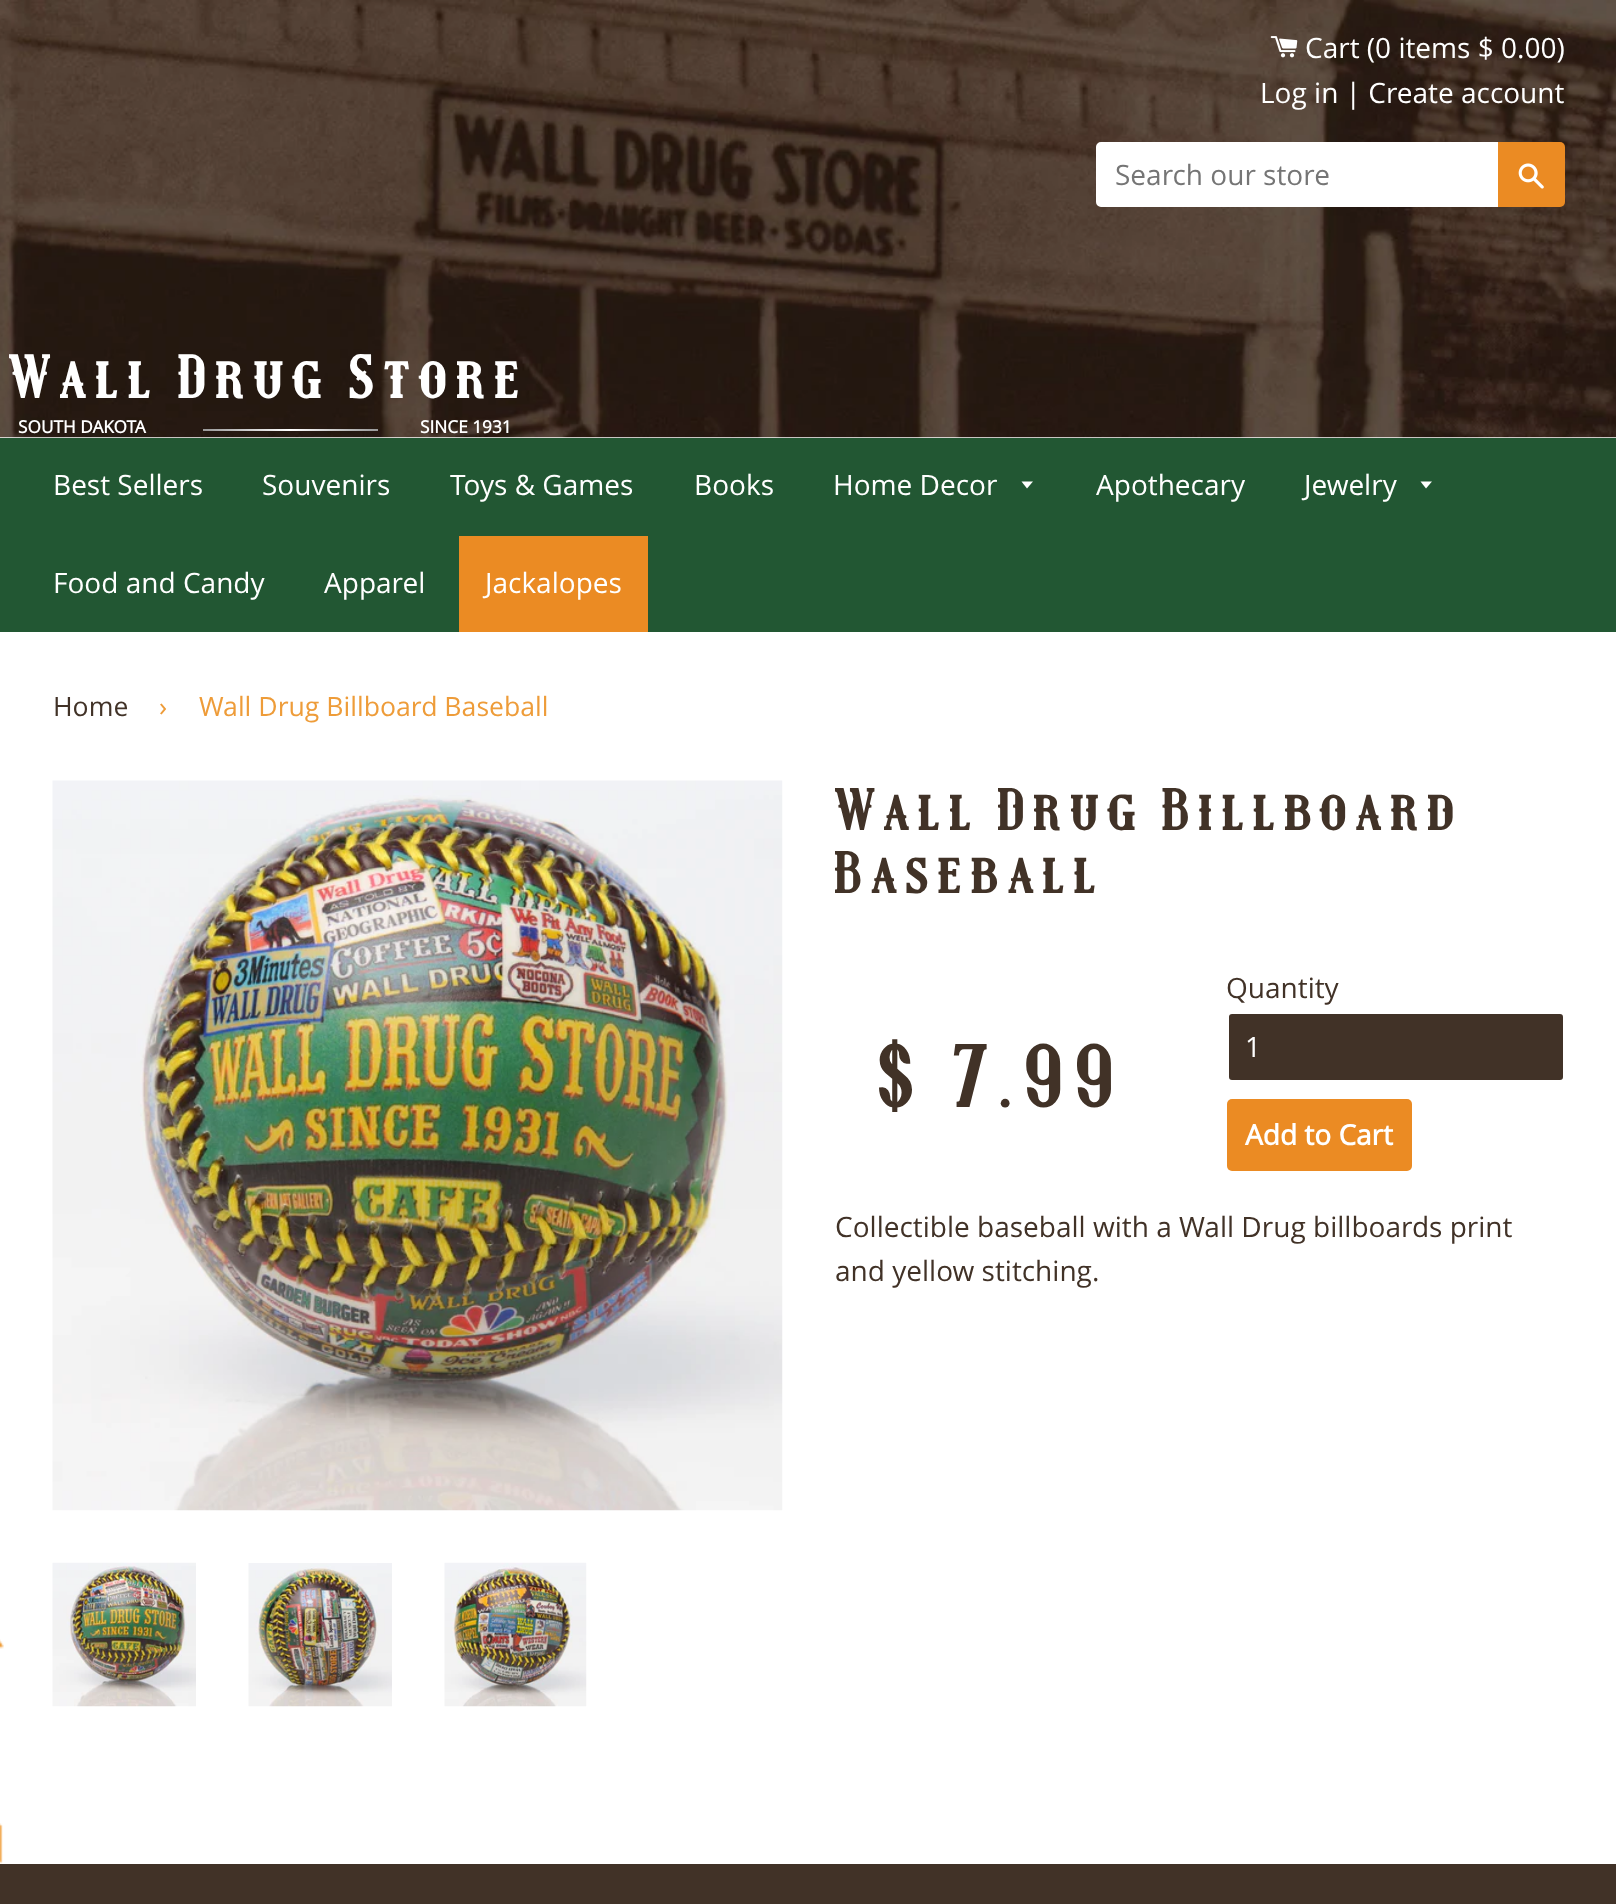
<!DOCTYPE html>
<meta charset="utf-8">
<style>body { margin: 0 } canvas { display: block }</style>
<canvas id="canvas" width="1616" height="1904"></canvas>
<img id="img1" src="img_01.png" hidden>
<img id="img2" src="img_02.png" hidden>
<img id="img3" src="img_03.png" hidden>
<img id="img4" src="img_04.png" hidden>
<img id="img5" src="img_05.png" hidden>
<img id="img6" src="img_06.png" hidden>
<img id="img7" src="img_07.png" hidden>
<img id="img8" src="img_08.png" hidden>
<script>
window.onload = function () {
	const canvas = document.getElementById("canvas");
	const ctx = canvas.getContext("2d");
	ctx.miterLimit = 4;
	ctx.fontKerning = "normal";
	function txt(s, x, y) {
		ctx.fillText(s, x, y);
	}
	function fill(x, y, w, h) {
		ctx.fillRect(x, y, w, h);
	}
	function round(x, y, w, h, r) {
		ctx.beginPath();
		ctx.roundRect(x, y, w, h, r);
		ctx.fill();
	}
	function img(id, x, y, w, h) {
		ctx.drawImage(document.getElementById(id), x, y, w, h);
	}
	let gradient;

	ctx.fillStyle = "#FFFFFF";
	fill(0, 0, 1616, 1904);
	img("img1", 0, 0, 1616, 438);
	img("img2", 1270, 36, 28, 22);
	ctx.beginPath();
	ctx.roundRect(1097, 143, 400, 63, [4, 0, 0, 4]);
	ctx.fill();
	ctx.strokeStyle = "#FFFFFF";
	ctx.lineWidth = 2;
	ctx.stroke();
	ctx.fillStyle = "#EB8B23";
	ctx.beginPath();
	ctx.roundRect(1498, 142, 67, 65, [0, 5, 5, 0]);
	ctx.fill();
	img("img3", 1518, 163, 26, 26);
	gradient = ctx.createLinearGradient(203, 430, 378, 430);
	gradient.addColorStop(0, "#999999");
	gradient.addColorStop(0.5, "#FFFFFF");
	gradient.addColorStop(1, "#999999");
	ctx.fillStyle = gradient;
	fill(203, 429, 175, 2);
	ctx.fillStyle = "#225733";
	fill(0, 438, 1616, 194);
	ctx.fillStyle = "#FFFFFF";
	ctx.beginPath();
	ctx.moveTo(1021.5, 481.5);
	ctx.lineTo(1027, 488.5);
	ctx.lineTo(1033, 481.5);
	ctx.closePath();
	ctx.fill();
	ctx.beginPath();
	ctx.moveTo(1420.5, 481.5);
	ctx.lineTo(1426, 488.5);
	ctx.lineTo(1432, 481.5);
	ctx.closePath();
	ctx.fill();
	ctx.fillStyle = "#EB8B23";
	fill(459, 536, 189, 96);
	img("img4", 52, 780, 731, 731);
	img("img5", 52, 1562, 144, 145);
	img("img6", 248, 1563, 144, 144);
	img("img7", 444, 1562, 143, 145);
	ctx.fillStyle = "#413227";
	ctx.beginPath();
	ctx.roundRect(1228, 1013, 336, 68, 4);
	ctx.fill();
	ctx.stroke();
	ctx.fillStyle = "#EB8B23";
	round(1227, 1099, 185, 72, 5);
	ctx.fillStyle = "#413227";
	fill(0, 1864, 1616, 40);
	img("img8", 0, 1639, 4, 225);
	ctx.font = "28px Open Sans";
	ctx.fillStyle = "#FFFFFF";
	txt("Cart (0 items $ 0.00)", 1305, 58);
	txt("Log in | Create account", 1260, 103);
	ctx.fillStyle = "#757575";
	txt("Search our store", 1115, 185);
	ctx.letterSpacing = "8.75px";
	ctx.font = "bold 58.25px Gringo";
	ctx.fillStyle = "#FFFFFF";
	txt("Wall Drug Store", 9, 398);
	ctx.letterSpacing = "0px";
	ctx.font = "bold 17.25px Open Sans";
	txt("SOUTH DAKOTA", 18, 433);
	txt("SINCE 1931", 420, 433);
	ctx.font = "28px Open Sans";
	txt("Best Sellers", 53, 495);
	txt("Souvenirs", 262, 495);
	txt("Toys & Games", 450, 495);
	txt("Books", 694, 495);
	txt("Home Decor", 833, 495);
	txt("Apothecary", 1096, 495);
	txt("Jewelry", 1304, 495);
	txt("Food and Candy", 53, 593);
	txt("Apparel", 324, 593);
	txt("Jackalopes", 485, 593);
	ctx.font = "26.6px Open Sans";
	ctx.fillStyle = "#413227";
	txt("Home", 53, 716);
	ctx.fillStyle = "#EE9C39";
	txt("›", 159, 716);
	txt("Wall Drug Billboard Baseball", 199, 716);
	ctx.letterSpacing = "8.4px";
	ctx.font = "bold 56px Gringo";
	ctx.fillStyle = "#413227";
	txt("Wall Drug Billboard", 835, 830);
	txt("Baseball", 835, 893);
	ctx.letterSpacing = "12.5px";
	ctx.font = "bold 84px Gringo";
	txt("$ 7.99", 879, 1107);
	ctx.letterSpacing = "0px";
	ctx.font = "28px Open Sans";
	txt("Quantity", 1226, 998);
	ctx.fillStyle = "#FFFFFF";
	txt("1", 1245, 1057);
	ctx.font = "bold 28px Open Sans";
	txt("Add to Cart", 1245, 1145);
	ctx.font = "28px Open Sans";
	ctx.fillStyle = "#413227";
	txt("Collectible baseball with a Wall Drug billboards print", 835, 1237);
	txt("and yellow stitching.", 835, 1281);
};
</script>
